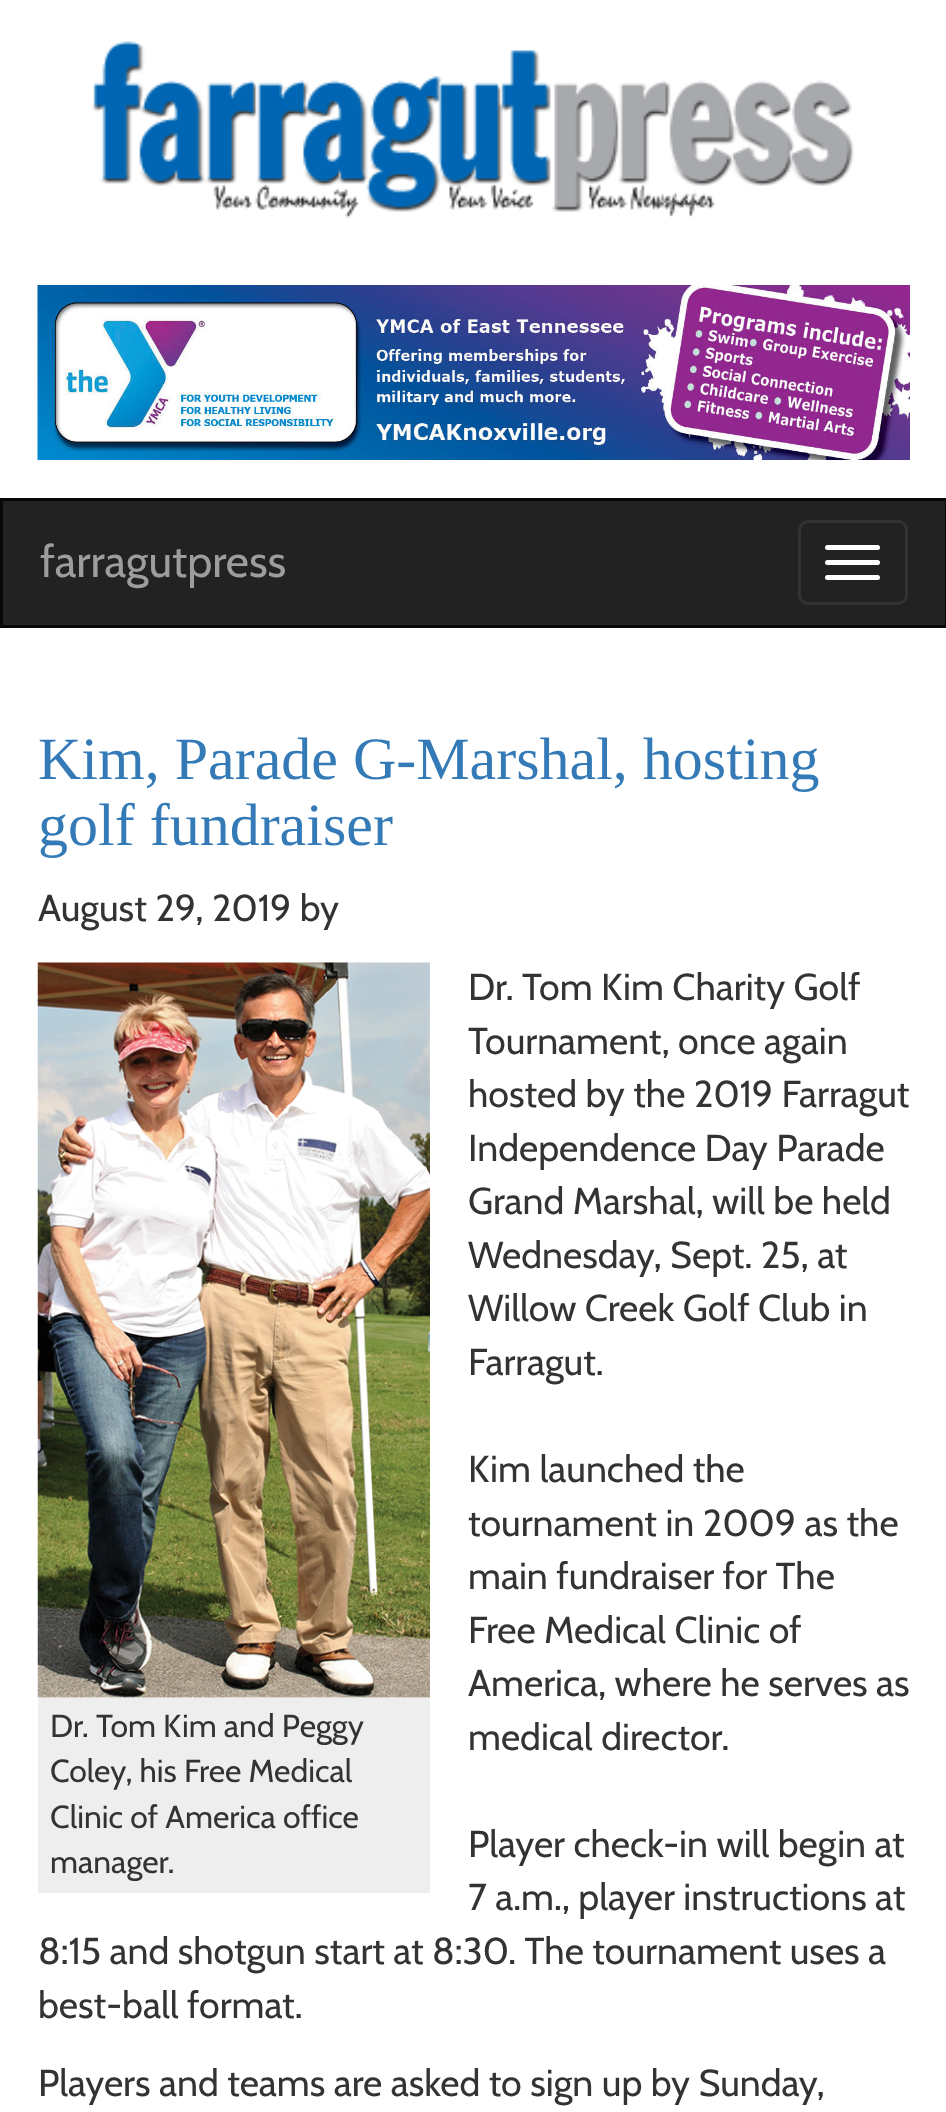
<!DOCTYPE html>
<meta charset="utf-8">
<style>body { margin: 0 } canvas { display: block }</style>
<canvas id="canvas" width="946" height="2112"></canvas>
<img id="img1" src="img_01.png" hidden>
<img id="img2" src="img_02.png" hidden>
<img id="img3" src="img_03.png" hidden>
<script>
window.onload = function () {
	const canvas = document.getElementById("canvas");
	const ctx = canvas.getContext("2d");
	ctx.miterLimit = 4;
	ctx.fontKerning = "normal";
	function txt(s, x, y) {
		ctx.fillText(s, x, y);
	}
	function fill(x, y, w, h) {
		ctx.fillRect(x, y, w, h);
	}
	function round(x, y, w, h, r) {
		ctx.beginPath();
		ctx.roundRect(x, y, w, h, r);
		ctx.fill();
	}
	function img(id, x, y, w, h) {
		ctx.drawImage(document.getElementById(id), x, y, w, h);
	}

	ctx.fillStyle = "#FFFFFF";
	fill(0, 0, 946, 2112);
	img("img1", 92, 41, 762, 178);
	img("img2", 37, 285, 873, 175);
	ctx.fillStyle = "#222222";
	ctx.beginPath();
	ctx.rect(1.5, 499.5, 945, 127);
	ctx.fill();
	ctx.strokeStyle = "#080808";
	ctx.lineWidth = 3;
	ctx.stroke();
	ctx.beginPath();
	ctx.roundRect(799.5, 521.5, 107, 82, 8.5);
	ctx.strokeStyle = "#333333";
	ctx.stroke();
	ctx.fillStyle = "#FFFFFF";
	round(825, 545, 55, 5, 2.5);
	round(825, 560, 55, 5, 2.5);
	round(825, 575, 55, 5, 2.5);
	img("img3", 37, 962, 393, 736);
	ctx.fillStyle = "#EEEEEE";
	fill(38, 1698, 392, 195);
	ctx.font = "45px Cabin";
	ctx.fillStyle = "#9D9D9D";
	txt("farragutpress", 40, 577);
	ctx.font = "60px Liberation Serif";
	ctx.fillStyle = "#337AB7";
	txt("Kim, Parade G-Marshal, hosting", 38, 779);
	txt("golf fundraiser", 38, 845);
	ctx.font = "37.5px Cabin";
	ctx.fillStyle = "#333333";
	txt("August 29, 2019 by", 38, 921);
	txt("Dr. Tom Kim Charity Golf", 468, 1000);
	txt("Tournament, once again", 468, 1054);
	txt("hosted by the 2019 Farragut", 468, 1107);
	txt("Independence Day Parade", 468, 1161);
	txt("Grand Marshal, will be held", 468, 1214);
	txt("Wednesday, Sept. 25, at", 468, 1268);
	txt("Willow Creek Golf Club in", 468, 1321);
	txt("Farragut.", 468, 1375);
	txt("Kim launched the", 468, 1482);
	txt("tournament in 2009 as the", 468, 1536);
	txt("main fundraiser for The", 468, 1589);
	txt("Free Medical Clinic of", 468, 1643);
	txt("America, where he serves as", 468, 1696);
	ctx.font = "31.9px Cabin";
	txt("Dr. Tom Kim and Peggy", 50, 1737);
	txt("Coley, his Free Medical", 50, 1782);
	txt("Clinic of America office", 50, 1828);
	txt("manager.", 50, 1873);
	ctx.font = "37.5px Cabin";
	txt("medical director.", 468, 1750);
	txt("Player check-in will begin at", 468, 1857);
	txt("7 a.m., player instructions at", 468, 1910);
	txt("8:15 and shotgun start at 8:30. The tournament uses a", 38, 1964);
	txt("best-ball format.", 38, 2018);
	txt("Players and teams are asked to sign up by Sunday,", 38, 2096);
};
</script>
